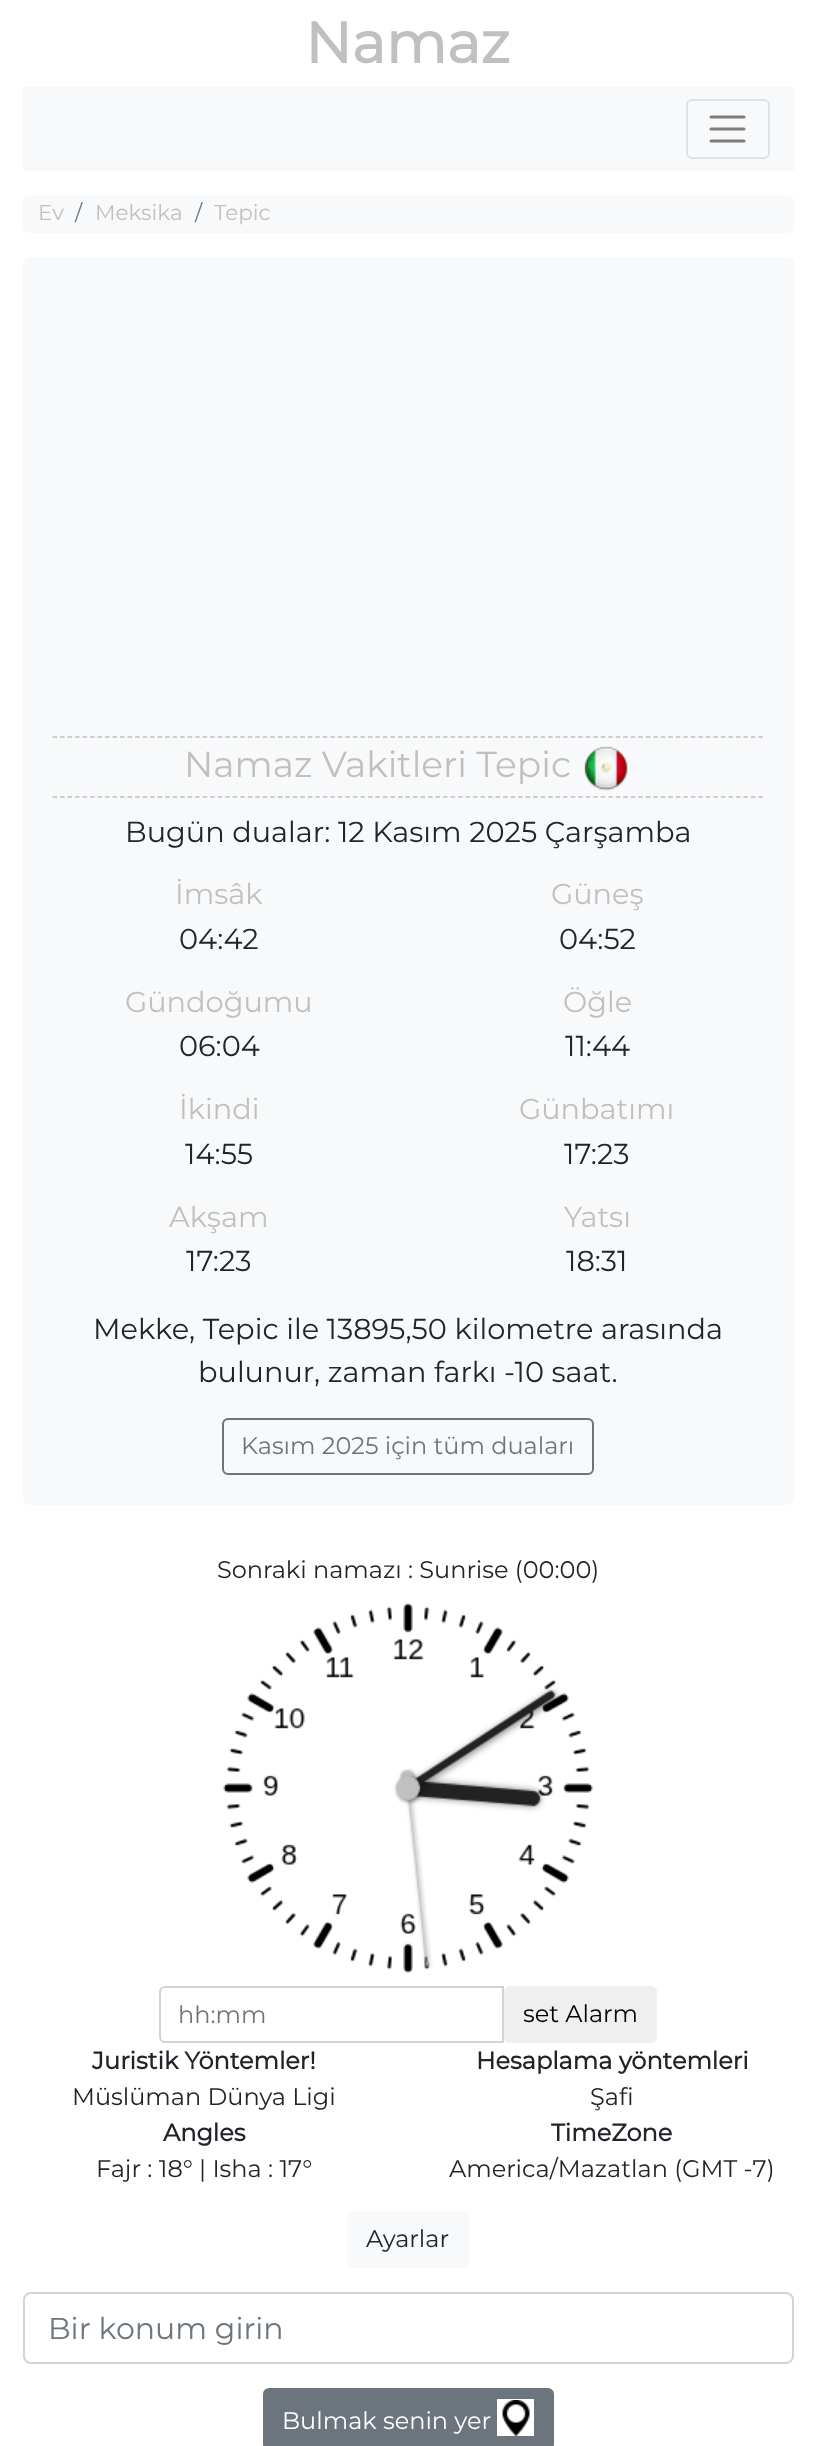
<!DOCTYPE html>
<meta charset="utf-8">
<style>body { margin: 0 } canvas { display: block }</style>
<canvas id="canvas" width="816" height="2446"></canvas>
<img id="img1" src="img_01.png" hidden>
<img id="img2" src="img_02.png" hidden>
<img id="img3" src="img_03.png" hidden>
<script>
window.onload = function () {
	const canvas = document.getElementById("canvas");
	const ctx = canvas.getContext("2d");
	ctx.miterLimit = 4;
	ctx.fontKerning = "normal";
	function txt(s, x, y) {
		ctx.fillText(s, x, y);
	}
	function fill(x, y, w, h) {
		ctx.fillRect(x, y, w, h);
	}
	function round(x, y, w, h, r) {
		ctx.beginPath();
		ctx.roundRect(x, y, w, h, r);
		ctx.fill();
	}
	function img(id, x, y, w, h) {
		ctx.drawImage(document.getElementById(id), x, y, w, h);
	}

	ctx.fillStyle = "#FFFFFF";
	fill(0, 0, 816, 2446);
	ctx.fillStyle = "#F8F9FA";
	fill(23, 87, 771, 84);
	ctx.beginPath();
	ctx.roundRect(687, 100, 82, 58, 5);
	ctx.strokeStyle = "#DFE0E1";
	ctx.lineWidth = 2;
	ctx.stroke();
	ctx.beginPath();
	ctx.moveTo(711, 117);
	ctx.lineTo(744, 117);
	ctx.moveTo(711, 129);
	ctx.lineTo(744, 129);
	ctx.moveTo(711, 141);
	ctx.lineTo(744, 141);
	ctx.strokeStyle = "#7C7D7D";
	ctx.lineWidth = 3;
	ctx.lineCap = "round";
	ctx.stroke();
	round(23, 195, 771, 38, 6);
	round(23, 257, 771, 1248, 8);
	ctx.beginPath();
	ctx.moveTo(52.5, 737);
	ctx.lineTo(763.5, 737);
	ctx.strokeStyle = "#C0C0C0";
	ctx.lineWidth = 1.5;
	ctx.lineCap = "butt";
	ctx.setLineDash([4.5, 3.01]);
	ctx.stroke();
	ctx.beginPath();
	ctx.moveTo(52.5, 797);
	ctx.lineTo(763.5, 797);
	ctx.stroke();
	img("img1", 584, 746, 44, 45);
	ctx.beginPath();
	ctx.roundRect(223, 1419, 370, 55, 5);
	ctx.strokeStyle = "#6C757D";
	ctx.lineWidth = 2;
	ctx.setLineDash([]);
	ctx.stroke();
	img("img2", 223, 1603, 370, 370);
	ctx.beginPath();
	ctx.roundRect(160, 1987, 343, 55, [5, 0, 0, 5]);
	ctx.strokeStyle = "#CED4DA";
	ctx.stroke();
	ctx.fillStyle = "#EFEFEF";
	round(504, 1986, 153, 57, 6);
	ctx.fillStyle = "#F8F9FA";
	round(347, 2211, 123, 57, 6);
	ctx.beginPath();
	ctx.roundRect(24, 2293, 769, 70, 7);
	ctx.stroke();
	ctx.fillStyle = "#6C757D";
	ctx.beginPath();
	ctx.roundRect(264, 2389, 289, 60, 5);
	ctx.fill();
	ctx.strokeStyle = "#6C757D";
	ctx.stroke();
	ctx.fillStyle = "#FFFFFF";
	fill(497, 2399, 37, 37);
	img("img3", 502, 2400, 28, 36);
	ctx.font = "bold 57.5px Montserrat";
	ctx.fillStyle = "#C0C0C0";
	txt("Namaz", 305, 63);
	ctx.font = "100 21.5px Montserrat";
	txt("Ev", 38, 220);
	ctx.fillStyle = "#6C757D";
	txt("/", 75, 220);
	ctx.fillStyle = "#C0C0C0";
	txt("Meksika", 95, 220);
	ctx.fillStyle = "#6C757D";
	txt("/", 195, 220);
	ctx.fillStyle = "#C0C0C0";
	txt("Tepic", 214, 220);
	ctx.font = "100 36px Montserrat";
	txt("Namaz Vakitleri Tepic", 184, 777);
	ctx.font = "100 28.8px Montserrat";
	ctx.fillStyle = "#212529";
	txt("Bugün dualar: 12 Kasım 2025 Çarşamba", 125, 842);
	ctx.fillStyle = "#C0C0C0";
	txt("İmsâk", 175, 904);
	ctx.fillStyle = "#212529";
	txt("04:42", 179, 949);
	ctx.fillStyle = "#C0C0C0";
	txt("Güneş", 551, 904);
	ctx.fillStyle = "#212529";
	txt("04:52", 559, 949);
	ctx.fillStyle = "#C0C0C0";
	txt("Gündoğumu", 125, 1012);
	ctx.fillStyle = "#212529";
	txt("06:04", 179, 1056);
	ctx.fillStyle = "#C0C0C0";
	txt("Öğle", 563, 1012);
	ctx.fillStyle = "#212529";
	txt("11:44", 565, 1056);
	ctx.fillStyle = "#C0C0C0";
	txt("İkindi", 179, 1119);
	ctx.fillStyle = "#212529";
	txt("14:55", 185, 1164);
	ctx.fillStyle = "#C0C0C0";
	txt("Günbatımı", 519, 1119);
	ctx.fillStyle = "#212529";
	txt("17:23", 564, 1164);
	ctx.fillStyle = "#C0C0C0";
	txt("Akşam", 169, 1227);
	ctx.fillStyle = "#212529";
	txt("17:23", 186, 1271);
	ctx.fillStyle = "#C0C0C0";
	txt("Yatsı", 564, 1227);
	ctx.fillStyle = "#212529";
	txt("18:31", 566, 1271);
	txt("Mekke, Tepic ile 13895,50 kilometre arasında", 93, 1339);
	txt("bulunur, zaman farkı -10 saat.", 198, 1382);
	ctx.font = "100 24px Montserrat";
	ctx.fillStyle = "#6C757D";
	txt("Kasım 2025 için tüm duaları", 241, 1454);
	ctx.fillStyle = "#212529";
	txt("Sonraki namazı : Sunrise (00:00)", 217, 1578);
	ctx.fillStyle = "#6C757D";
	txt("hh:mm", 178, 2023);
	ctx.fillStyle = "#000000";
	txt("set Alarm", 523, 2022);
	ctx.font = "bold 24px Montserrat";
	ctx.fillStyle = "#212529";
	txt("Juristik Yöntemler!", 92, 2069);
	ctx.font = "100 24px Montserrat";
	txt("Müslüman Dünya Ligi", 72, 2105);
	ctx.font = "bold 24px Montserrat";
	txt("Hesaplama yöntemleri", 476, 2069);
	ctx.font = "100 24px Montserrat";
	txt("Şafi", 590, 2105);
	ctx.font = "bold 24px Montserrat";
	txt("Angles", 163, 2141);
	ctx.font = "100 24px Montserrat";
	txt("Fajr : 18° | Isha : 17°", 96, 2177);
	ctx.font = "bold 24px Montserrat";
	txt("TimeZone", 551, 2141);
	ctx.font = "100 24px Montserrat";
	txt("America/Mazatlan (GMT -7)", 449, 2177);
	txt("Ayarlar", 366, 2247);
	ctx.font = "100 30px Montserrat";
	ctx.fillStyle = "#6C757D";
	txt("Bir konum girin", 48, 2339);
	ctx.font = "100 24px Montserrat";
	ctx.fillStyle = "#FFFFFF";
	txt("Bulmak senin yer", 282, 2429);
};
</script>
